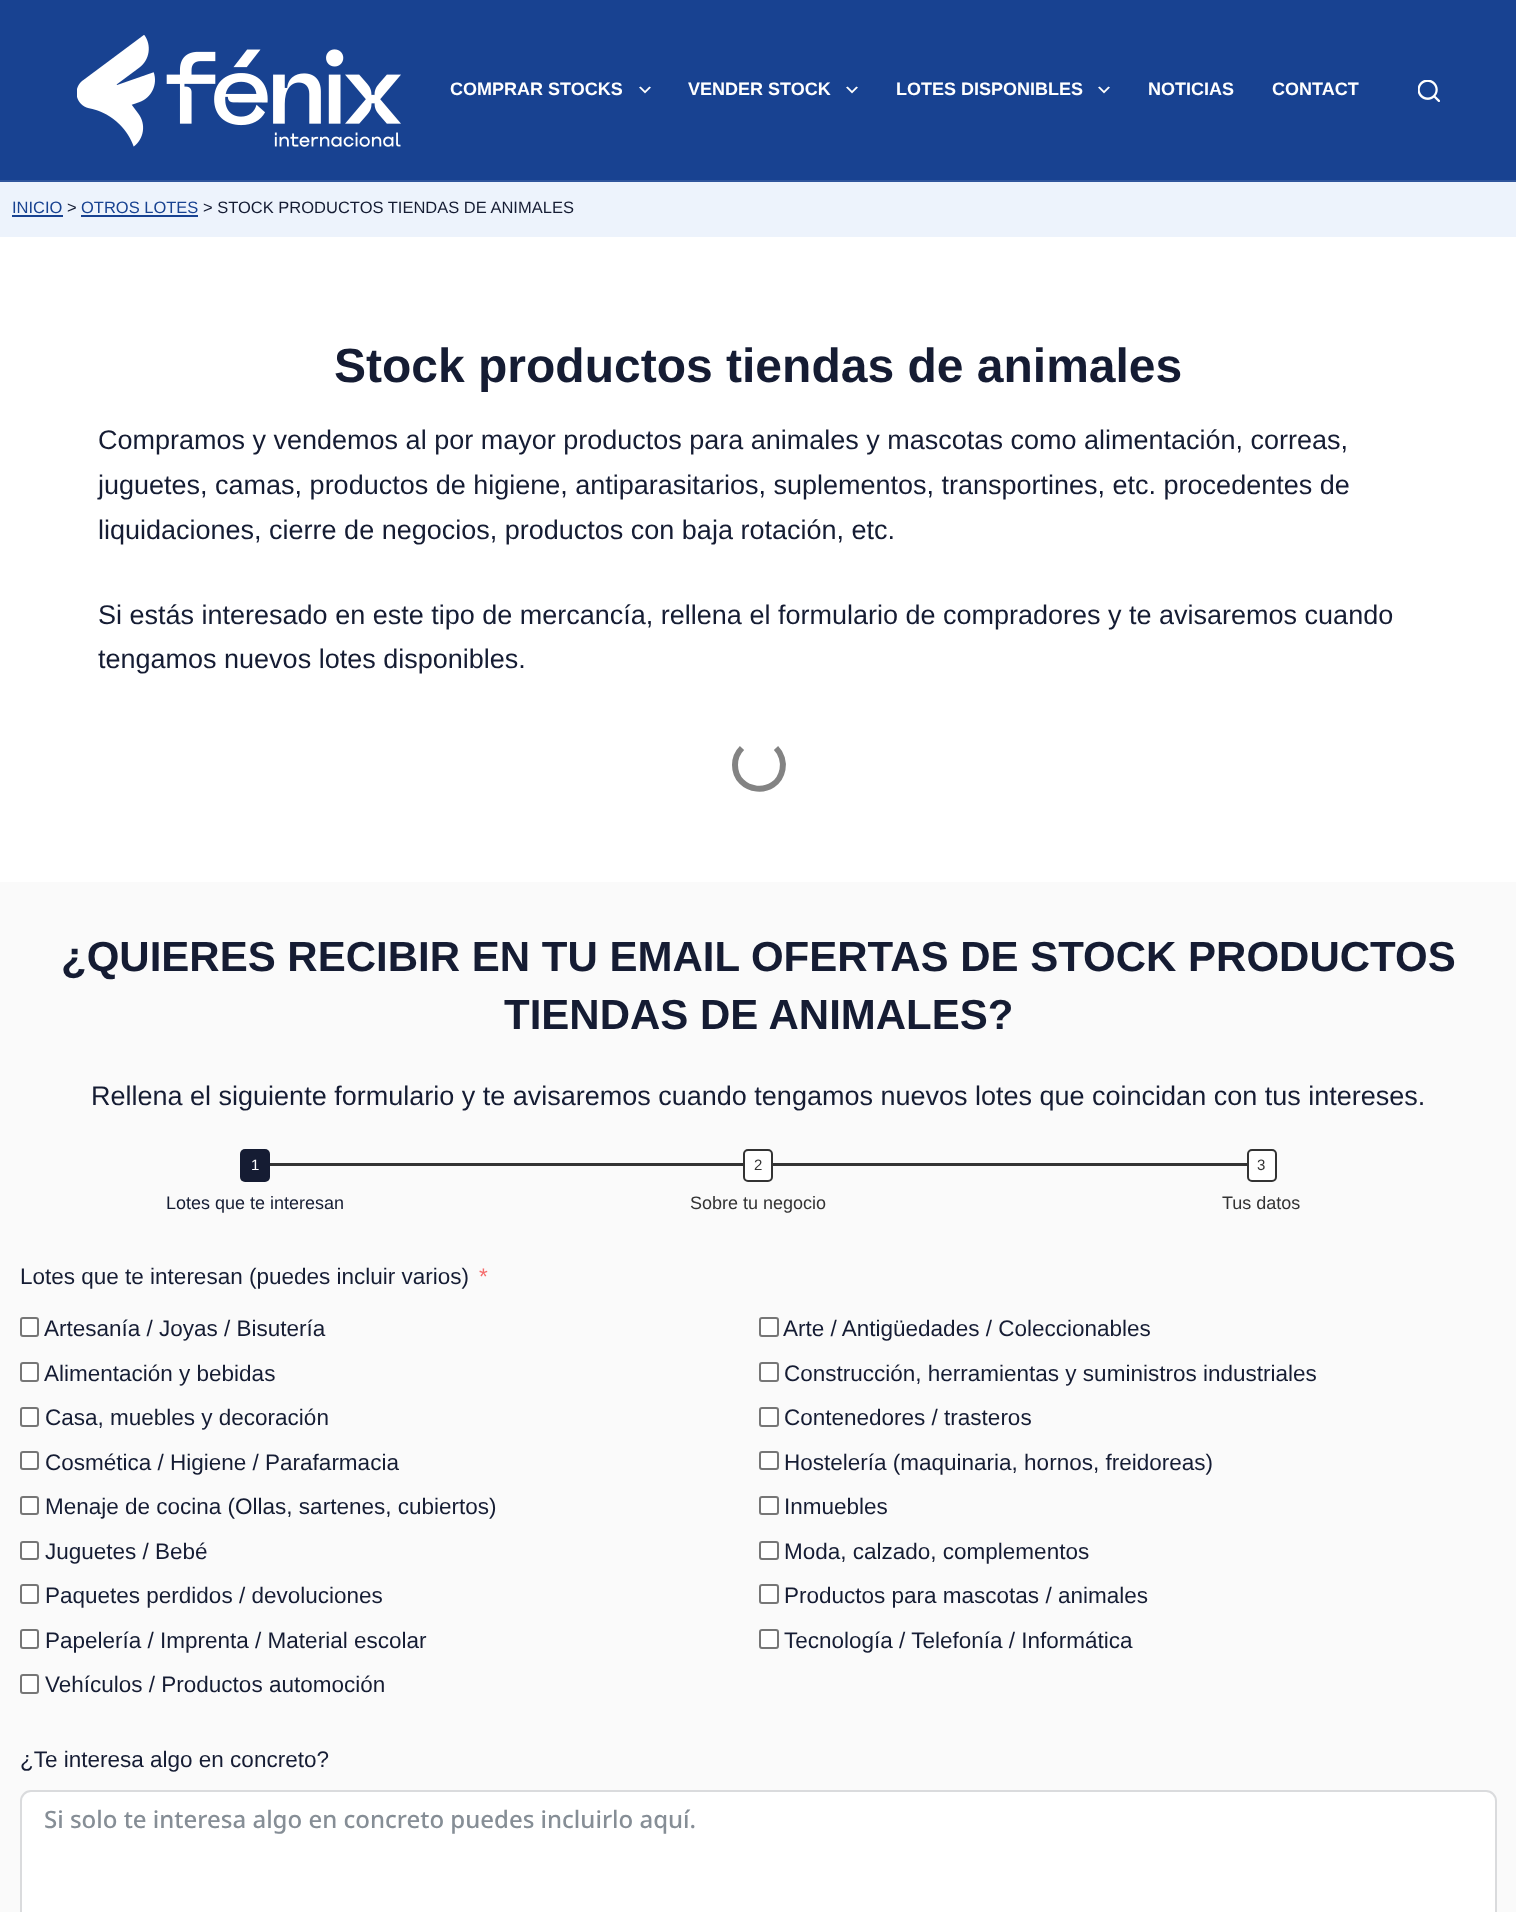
<!DOCTYPE html>
<meta charset="utf-8">
<style>body { margin: 0 } canvas { display: block }</style>
<canvas id="canvas" width="1516" height="1912"></canvas>
<img id="img1" src="img_01.png" hidden>
<img id="img2" src="img_02.png" hidden>
<img id="img3" src="img_03.png" hidden>
<script>
window.onload = function () {
	const canvas = document.getElementById("canvas");
	const ctx = canvas.getContext("2d");
	ctx.miterLimit = 4;
	ctx.fontKerning = "normal";
	function txt(s, x, y) {
		ctx.fillText(s, x, y);
	}
	function fill(x, y, w, h) {
		ctx.fillRect(x, y, w, h);
	}
	function round(x, y, w, h, r) {
		ctx.beginPath();
		ctx.roundRect(x, y, w, h, r);
		ctx.fill();
	}
	function img(id, x, y, w, h) {
		ctx.drawImage(document.getElementById(id), x, y, w, h);
	}

	ctx.fillStyle = "#FFFFFF";
	fill(0, 0, 1516, 1912);
	ctx.fillStyle = "#184291";
	fill(0, 0, 1516, 180);
	ctx.fillStyle = "#2F559C";
	fill(0, 180, 1516, 2);
	img("img1", 77, 35, 324, 112);
	img("img2", 639, 86, 12, 8);
	img("img2", 846, 86, 12, 8);
	img("img2", 1098, 86, 12, 8);
	img("img3", 1418, 80, 22, 22);
	ctx.fillStyle = "#EDF3FC";
	fill(0, 182, 1516, 55);
	ctx.fillStyle = "#184291";
	fill(12, 215, 51, 2);
	fill(81, 215, 117, 2);
	ctx.beginPath();
	ctx.moveTo(776, 748);
	ctx.bezierCurveTo(781.5, 753.5, 784, 762, 782.5, 769.5);
	ctx.bezierCurveTo(777, 798, 735, 793.5, 735, 765);
	ctx.bezierCurveTo(735, 758.5, 737.5, 752.5, 742, 748);
	ctx.strokeStyle = "#838383";
	ctx.lineWidth = 6;
	ctx.stroke();
	ctx.fillStyle = "#FAFAFA";
	fill(0, 882, 1516, 1030);
	ctx.fillStyle = "#333333";
	fill(263, 1163, 480, 3);
	ctx.fillStyle = "#151C33";
	round(240, 1149, 30, 33, 5);
	ctx.fillStyle = "#FFFFFF";
	ctx.beginPath();
	ctx.roundRect(744, 1150, 28, 31, 4);
	ctx.fill();
	ctx.strokeStyle = "#333333";
	ctx.lineWidth = 2;
	ctx.stroke();
	ctx.fillStyle = "#333333";
	fill(773, 1163, 481, 3);
	ctx.fillStyle = "#FFFFFF";
	ctx.beginPath();
	ctx.roundRect(1248, 1150, 28, 31, 4);
	ctx.fill();
	ctx.stroke();
	ctx.beginPath();
	ctx.roundRect(21, 1318, 17, 18, 2);
	ctx.fill();
	ctx.strokeStyle = "#767676";
	ctx.stroke();
	ctx.beginPath();
	ctx.roundRect(760, 1318, 18, 18, 2);
	ctx.fill();
	ctx.stroke();
	ctx.beginPath();
	ctx.roundRect(21, 1363, 17, 18, 2);
	ctx.fill();
	ctx.stroke();
	ctx.beginPath();
	ctx.roundRect(760, 1363, 18, 18, 2);
	ctx.fill();
	ctx.stroke();
	ctx.beginPath();
	ctx.roundRect(21, 1408, 17, 18, 2);
	ctx.fill();
	ctx.stroke();
	ctx.beginPath();
	ctx.roundRect(760, 1408, 18, 18, 2);
	ctx.fill();
	ctx.stroke();
	ctx.beginPath();
	ctx.roundRect(21, 1452, 17, 17, 2);
	ctx.fill();
	ctx.stroke();
	ctx.beginPath();
	ctx.roundRect(760, 1452, 18, 17, 2);
	ctx.fill();
	ctx.stroke();
	ctx.beginPath();
	ctx.roundRect(21, 1497, 17, 17, 2);
	ctx.fill();
	ctx.stroke();
	ctx.beginPath();
	ctx.roundRect(760, 1497, 18, 17, 2);
	ctx.fill();
	ctx.stroke();
	ctx.beginPath();
	ctx.roundRect(21, 1542, 17, 17, 2);
	ctx.fill();
	ctx.stroke();
	ctx.beginPath();
	ctx.roundRect(760, 1542, 18, 17, 2);
	ctx.fill();
	ctx.stroke();
	ctx.beginPath();
	ctx.roundRect(21, 1585, 17, 18, 2);
	ctx.fill();
	ctx.stroke();
	ctx.beginPath();
	ctx.roundRect(760, 1585, 18, 18, 2);
	ctx.fill();
	ctx.stroke();
	ctx.beginPath();
	ctx.roundRect(21, 1630, 17, 18, 2);
	ctx.fill();
	ctx.stroke();
	ctx.beginPath();
	ctx.roundRect(760, 1630, 18, 18, 2);
	ctx.fill();
	ctx.stroke();
	ctx.beginPath();
	ctx.roundRect(21, 1675, 17, 18, 2);
	ctx.fill();
	ctx.stroke();
	round(21, 1791, 1475, 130, 9);
	ctx.beginPath();
	ctx.roundRect(21, 1791, 1475, 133, 10);
	ctx.strokeStyle = "#DADBDD";
	ctx.stroke();
	ctx.font = "bold 18px Liberation Sans";
	txt("COMPRAR STOCKS", 450, 95);
	txt("VENDER STOCK", 688, 95);
	txt("LOTES DISPONIBLES", 896, 95);
	txt("NOTICIAS", 1148, 95);
	txt("CONTACT", 1272, 95);
	ctx.font = "16.5px Liberation Sans";
	ctx.fillStyle = "#184291";
	txt("INICIO", 12, 213);
	ctx.fillStyle = "#151C33";
	txt(">", 67, 213);
	ctx.fillStyle = "#184291";
	txt("OTROS LOTES", 81, 213);
	ctx.fillStyle = "#151C33";
	txt("> STOCK PRODUCTOS TIENDAS DE ANIMALES", 203, 213);
	ctx.font = "bold 48px Liberation Sans";
	txt("Stock productos tiendas de animales", 334, 382);
	ctx.font = "27px Liberation Sans";
	txt("Compramos y vendemos al por mayor productos para animales y mascotas como alimentación, correas,", 98, 449);
	txt("juguetes, camas, productos de higiene, antiparasitarios, suplementos, transportines, etc. procedentes de", 98, 494);
	txt("liquidaciones, cierre de negocios, productos con baja rotación, etc.", 98, 539);
	txt("Si estás interesado en este tipo de mercancía, rellena el formulario de compradores y te avisaremos cuando", 98, 624);
	txt("tengamos nuevos lotes disponibles.", 98, 668);
	ctx.font = "bold 42px Liberation Sans";
	txt("¿QUIERES RECIBIR EN TU EMAIL OFERTAS DE STOCK PRODUCTOS", 61, 971);
	txt("TIENDAS DE ANIMALES?", 504, 1029);
	ctx.font = "27px Liberation Sans";
	txt("Rellena el siguiente formulario y te avisaremos cuando tengamos nuevos lotes que coincidan con tus intereses.", 91, 1105);
	ctx.font = "15px Liberation Sans";
	ctx.fillStyle = "#FFFFFF";
	txt("1", 251, 1170);
	ctx.font = "18px Liberation Sans";
	ctx.fillStyle = "#151C33";
	txt("Lotes que te interesan", 166, 1209);
	ctx.font = "15px Liberation Sans";
	ctx.fillStyle = "#333333";
	txt("2", 754, 1170);
	ctx.font = "18px Liberation Sans";
	txt("Sobre tu negocio", 690, 1209);
	ctx.font = "15px Liberation Sans";
	txt("3", 1257, 1170);
	ctx.font = "18px Liberation Sans";
	txt("Tus datos", 1222, 1209);
	ctx.font = "22.5px Liberation Sans";
	ctx.fillStyle = "#151C33";
	txt("Lotes que te interesan (puedes incluir varios)", 20, 1284);
	ctx.fillStyle = "#F56C6C";
	txt("*", 479, 1284);
	ctx.fillStyle = "#151C33";
	txt("Artesanía / Joyas / Bisutería", 44, 1336);
	txt("Arte / Antigüedades / Coleccionables", 783, 1336);
	txt("Alimentación y bebidas", 44, 1381);
	txt("Construcción, herramientas y suministros industriales", 784, 1381);
	txt("Casa, muebles y decoración", 45, 1425);
	txt("Contenedores / trasteros", 784, 1425);
	txt("Cosmética / Higiene / Parafarmacia", 45, 1470);
	txt("Hostelería (maquinaria, hornos, freidoreas)", 784, 1470);
	txt("Menaje de cocina (Ollas, sartenes, cubiertos)", 45, 1514);
	txt("Inmuebles", 784, 1514);
	txt("Juguetes / Bebé", 45, 1559);
	txt("Moda, calzado, complementos", 784, 1559);
	txt("Paquetes perdidos / devoluciones", 45, 1603);
	txt("Productos para mascotas / animales", 784, 1603);
	txt("Papelería / Imprenta / Material escolar", 45, 1648);
	txt("Tecnología / Telefonía / Informática", 784, 1648);
	txt("Vehículos / Productos automoción", 45, 1692);
	txt("¿Te interesa algo en concreto?", 20, 1767);
	ctx.font = "500 24px Noto Sans";
	ctx.fillStyle = "#868E96";
	txt("Si solo te interesa algo en concreto puedes incluirlo aquí.", 44, 1828);
};
</script>
